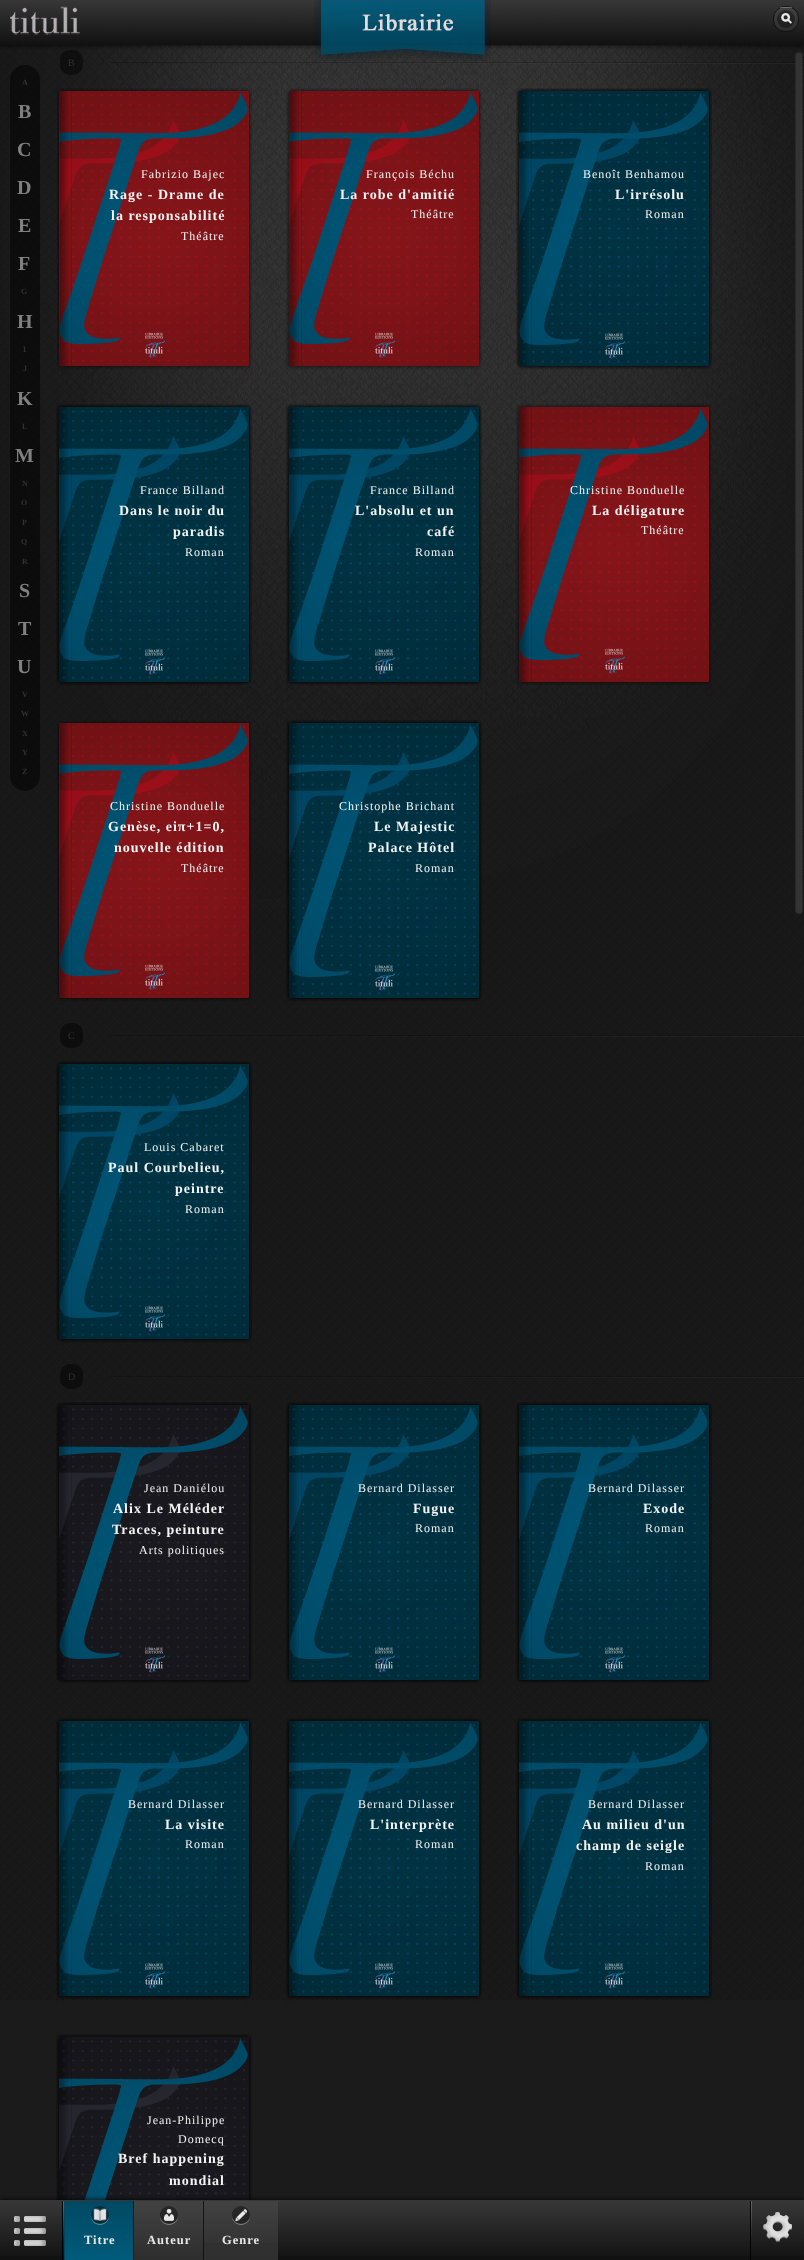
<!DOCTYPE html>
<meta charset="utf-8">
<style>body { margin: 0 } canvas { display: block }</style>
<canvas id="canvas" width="804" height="2260"></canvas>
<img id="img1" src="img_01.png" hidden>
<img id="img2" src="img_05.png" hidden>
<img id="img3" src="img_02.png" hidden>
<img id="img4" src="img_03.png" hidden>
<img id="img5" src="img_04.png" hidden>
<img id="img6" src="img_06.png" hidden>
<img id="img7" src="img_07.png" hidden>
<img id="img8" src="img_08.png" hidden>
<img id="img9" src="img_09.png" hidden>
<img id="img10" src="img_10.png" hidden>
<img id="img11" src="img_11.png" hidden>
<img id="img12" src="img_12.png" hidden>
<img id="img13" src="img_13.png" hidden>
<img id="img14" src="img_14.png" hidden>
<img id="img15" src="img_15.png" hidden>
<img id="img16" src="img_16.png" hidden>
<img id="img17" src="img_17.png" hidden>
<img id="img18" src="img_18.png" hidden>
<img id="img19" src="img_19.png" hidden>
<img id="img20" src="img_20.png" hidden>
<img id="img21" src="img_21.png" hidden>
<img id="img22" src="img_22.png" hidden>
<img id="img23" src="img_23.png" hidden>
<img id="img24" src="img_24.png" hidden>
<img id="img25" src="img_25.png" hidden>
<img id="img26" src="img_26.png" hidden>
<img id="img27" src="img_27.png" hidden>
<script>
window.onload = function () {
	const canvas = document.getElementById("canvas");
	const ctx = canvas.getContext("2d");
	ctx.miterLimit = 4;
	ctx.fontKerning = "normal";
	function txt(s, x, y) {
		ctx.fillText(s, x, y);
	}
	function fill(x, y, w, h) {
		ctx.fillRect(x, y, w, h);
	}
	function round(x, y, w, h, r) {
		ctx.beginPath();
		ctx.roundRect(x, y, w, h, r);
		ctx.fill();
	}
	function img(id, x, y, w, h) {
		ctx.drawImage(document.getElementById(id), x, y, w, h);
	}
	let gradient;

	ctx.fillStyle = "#1B1B1B";
	fill(0, 0, 804, 2260);
	img("img1", 0, 0, 804, 2000);
	ctx.fillStyle = "rgba(1, 1, 1, 0.5)";
	round(60, 50, 23, 25, 10);
	img("img2", 110, 62, 694, 2);
	ctx.fillStyle = "#333333";
	ctx.beginPath();
	ctx.roundRect(795.5, 52.5, 7, 861, 2.5);
	ctx.fill();
	ctx.strokeStyle = "#282828";
	ctx.stroke();
	ctx.save();
	ctx.beginPath();
	ctx.rect(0, 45, 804, 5);
	ctx.clip();
	ctx.fillStyle = "rgba(0, 0, 0, 0.9)";
	ctx.filter = "blur(2.5px)";
	ctx.beginPath();
	ctx.rect(0, -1, 804, 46);
	ctx.fill();
	ctx.filter = "none";
	ctx.restore();
	ctx.fillStyle = "rgba(17, 17, 17, 0.9)";
	fill(0, 0, 804, 45);
	gradient = ctx.createLinearGradient(402, -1, 402, 45);
	gradient.addColorStop(0, "rgba(60, 60, 60, 0.9)");
	gradient.addColorStop(1, "rgba(17, 17, 17, 0.9)");
	ctx.fillStyle = gradient;
	fill(0, 0, 804, 45);
	img("img3", 10, 6, 70, 29);
	img("img4", 314, 0, 177, 61);
	ctx.fillStyle = "rgba(51, 51, 51, 0.9)";
	round(774, 7, 24, 24, 11);
	gradient = ctx.createLinearGradient(786, 7, 786, 31);
	gradient.addColorStop(0, "rgba(68, 68, 68, 0.9)");
	gradient.addColorStop(1, "rgba(45, 45, 45, 0.9)");
	ctx.fillStyle = gradient;
	round(774, 7, 24, 24, 11);
	ctx.beginPath();
	ctx.roundRect(773.5, 6.5, 25, 25, 11.5);
	ctx.strokeStyle = "rgba(17, 17, 17, 0.9)";
	ctx.stroke();
	ctx.fillStyle = "rgba(255, 255, 255, 0.27)";
	fill(780, 7, 12, 1);
	ctx.fillStyle = "rgba(0, 0, 0, 0.36)";
	ctx.beginPath();
	ctx.arc(786, 19, 9, 0, Math.PI * 2);
	ctx.fill();
	img("img5", 781, 13, 11, 11);
	ctx.fillStyle = "rgba(0, 0, 0, 0.5)";
	round(10, 65, 30, 726, 15);
	img("img6", 57, 88, 195, 287);
	img("img7", 286, 88, 196, 287);
	img("img8", 516, 88, 196, 287);
	img("img9", 56, 404, 196, 287);
	img("img10", 286, 404, 196, 287);
	img("img11", 516, 404, 195, 287);
	img("img12", 57, 721, 194, 286);
	img("img13", 286, 720, 196, 287);
	img("img14", 110, 1035, 694, 2);
	ctx.fillStyle = "rgba(1, 1, 1, 0.5)";
	round(60, 1023, 23, 25, 10);
	img("img15", 56, 1061, 196, 287);
	img("img16", 110, 1376, 694, 2);
	round(60, 1364, 23, 25, 10);
	img("img17", 56, 1402, 196, 287);
	img("img18", 286, 1402, 196, 287);
	img("img18", 516, 1402, 196, 287);
	img("img19", 56, 1718, 196, 287);
	img("img19", 286, 1718, 196, 287);
	img("img19", 516, 1718, 196, 287);
	img("img20", 56, 2034, 196, 169);
	ctx.save();
	ctx.beginPath();
	ctx.rect(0, 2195, 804, 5);
	ctx.clip();
	ctx.fillStyle = "rgba(0, 0, 0, 0.9)";
	ctx.filter = "blur(2.5px)";
	ctx.beginPath();
	ctx.rect(0, 2200, 804, 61);
	ctx.fill();
	ctx.filter = "none";
	ctx.restore();
	ctx.fillStyle = "rgba(17, 17, 17, 0.9)";
	fill(0, 2200, 804, 60);
	gradient = ctx.createLinearGradient(402, 2200, 402, 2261);
	gradient.addColorStop(0, "rgba(60, 60, 60, 0.9)");
	gradient.addColorStop(1, "rgba(17, 17, 17, 0.9)");
	ctx.fillStyle = gradient;
	fill(0, 2200, 804, 56);
	img("img21", 62, 2201, 2, 59);
	img("img22", 14, 2216, 32, 30);
	ctx.fillStyle = "rgba(0, 73, 99, 0.9)";
	fill(65, 2201, 70, 59);
	gradient = ctx.createLinearGradient(100, 2201, 100, 2260);
	gradient.addColorStop(0, "rgba(0, 73, 99, 0.9)");
	gradient.addColorStop(1, "rgba(0, 93, 126, 0.9)");
	ctx.fillStyle = gradient;
	fill(65, 2201, 70, 59);
	ctx.fillStyle = "rgba(0, 73, 99, 0.9)";
	fill(64, 2201, 1, 59);
	ctx.fillStyle = "#5D8D9D";
	ctx.beginPath();
	ctx.moveTo(109, 2215.5);
	ctx.bezierCurveTo(108.5, 2226.5, 91.5, 2226.5, 91, 2215.5);
	ctx.bezierCurveTo(90.5, 2228, 109.5, 2228, 109, 2215.5);
	ctx.closePath();
	ctx.fill();
	ctx.fillStyle = "rgba(3, 3, 3, 0.4)";
	ctx.beginPath();
	ctx.arc(100, 2215, 9, 0, Math.PI * 2);
	ctx.fill();
	img("img23", 93, 2208, 14, 14);
	ctx.fillStyle = "rgba(51, 51, 51, 0.9)";
	fill(134, 2201, 70, 59);
	gradient = ctx.createLinearGradient(169, 2201, 169, 2260);
	gradient.addColorStop(0, "rgba(68, 68, 68, 0.9)");
	gradient.addColorStop(1, "rgba(45, 45, 45, 0.9)");
	ctx.fillStyle = gradient;
	fill(134, 2201, 70, 59);
	ctx.fillStyle = "rgba(17, 17, 17, 0.9)";
	fill(133, 2201, 1, 59);
	ctx.fillStyle = "#808080";
	ctx.beginPath();
	ctx.moveTo(178, 2215.5);
	ctx.bezierCurveTo(177.5, 2226.5, 160.5, 2226.5, 160, 2215.5);
	ctx.bezierCurveTo(159.5, 2228, 178.5, 2228, 178, 2215.5);
	ctx.closePath();
	ctx.fill();
	ctx.fillStyle = "rgba(3, 3, 3, 0.4)";
	ctx.beginPath();
	ctx.arc(169, 2215, 9, 0, Math.PI * 2);
	ctx.fill();
	img("img24", 164, 2209, 10, 12);
	ctx.fillStyle = "rgba(51, 51, 51, 0.9)";
	fill(204, 2201, 74, 59);
	gradient = ctx.createLinearGradient(241, 2201, 241, 2260);
	gradient.addColorStop(0, "rgba(68, 68, 68, 0.9)");
	gradient.addColorStop(1, "rgba(45, 45, 45, 0.9)");
	ctx.fillStyle = gradient;
	fill(204, 2201, 74, 42);
	ctx.fillStyle = "rgba(17, 17, 17, 0.9)";
	fill(203, 2201, 1, 59);
	ctx.fillStyle = "#808080";
	ctx.beginPath();
	ctx.moveTo(250, 2215.5);
	ctx.bezierCurveTo(249.5, 2226.5, 232.5, 2226.5, 232, 2215.5);
	ctx.bezierCurveTo(231.5, 2228, 250.5, 2228, 250, 2215.5);
	ctx.closePath();
	ctx.fill();
	ctx.fillStyle = "rgba(3, 3, 3, 0.4)";
	ctx.beginPath();
	ctx.arc(241, 2215, 9, 0, Math.PI * 2);
	ctx.fill();
	img("img25", 235, 2209, 12, 12);
	img("img26", 750, 2201, 2, 59);
	img("img27", 763, 2212, 29, 30);
	ctx.letterSpacing = "1px";
	ctx.font = "bold 8px Liberation Serif";
	ctx.fillStyle = "#323232";
	txt("A", 22, 85);
	ctx.font = "bold 20px Liberation Serif";
	ctx.fillStyle = "#808080";
	txt("B", 18, 118);
	txt("C", 17, 156);
	txt("D", 17, 194);
	txt("E", 18, 232);
	txt("F", 18, 270);
	ctx.font = "bold 8px Liberation Serif";
	ctx.fillStyle = "#323232";
	txt("G", 21, 294);
	ctx.font = "bold 20px Liberation Serif";
	ctx.fillStyle = "#808080";
	txt("H", 17, 328);
	ctx.font = "bold 8px Liberation Serif";
	ctx.fillStyle = "#323232";
	txt("I", 23, 352);
	txt("J", 23, 371);
	ctx.font = "bold 20px Liberation Serif";
	ctx.fillStyle = "#808080";
	txt("K", 17, 405);
	ctx.font = "bold 8px Liberation Serif";
	ctx.fillStyle = "#323232";
	txt("L", 22, 429);
	ctx.font = "bold 20px Liberation Serif";
	ctx.fillStyle = "#808080";
	txt("M", 15, 462);
	ctx.font = "bold 8px Liberation Serif";
	ctx.fillStyle = "#323232";
	txt("N", 22, 486);
	txt("O", 21, 505);
	txt("P", 22, 525);
	txt("Q", 21, 544);
	txt("R", 22, 564);
	ctx.font = "bold 20px Liberation Serif";
	ctx.fillStyle = "#808080";
	txt("S", 19, 597);
	txt("T", 18, 635);
	txt("U", 17, 673);
	ctx.font = "bold 8px Liberation Serif";
	ctx.fillStyle = "#323232";
	txt("V", 22, 697);
	txt("W", 21, 716);
	txt("X", 22, 736);
	txt("Y", 22, 755);
	txt("Z", 22, 774);
	ctx.font = "10px Liberation Serif";
	txt("B", 68, 66);
	ctx.font = "12px Liberation Serif";
	ctx.fillStyle = "#F3F3F3";
	txt("Fabrizio Bajec", 141, 178);
	ctx.font = "bold 14px Liberation Serif";
	txt("Rage - Drame de", 109, 199);
	txt("la responsabilité", 111, 220);
	ctx.font = "12px Liberation Serif";
	txt("Théâtre", 181, 240);
	txt("François Béchu", 366, 178);
	ctx.font = "bold 14px Liberation Serif";
	txt("La robe d'amitié", 340, 199);
	ctx.font = "12px Liberation Serif";
	txt("Théâtre", 411, 218);
	txt("Benoît Benhamou", 583, 178);
	ctx.font = "bold 14px Liberation Serif";
	txt("L'irrésolu", 615, 199);
	ctx.font = "12px Liberation Serif";
	txt("Roman", 645, 218);
	txt("France Billand", 140, 494);
	ctx.font = "bold 14px Liberation Serif";
	txt("Dans le noir du", 119, 515);
	txt("paradis", 173, 536);
	ctx.font = "12px Liberation Serif";
	txt("Roman", 185, 556);
	txt("France Billand", 370, 494);
	ctx.font = "bold 14px Liberation Serif";
	txt("L'absolu et un", 355, 515);
	txt("café", 427, 536);
	ctx.font = "12px Liberation Serif";
	txt("Roman", 415, 556);
	txt("Christine Bonduelle", 570, 494);
	ctx.font = "bold 14px Liberation Serif";
	txt("La déligature", 592, 515);
	ctx.font = "12px Liberation Serif";
	txt("Théâtre", 641, 534);
	txt("Christine Bonduelle", 110, 810);
	ctx.font = "bold 14px Liberation Serif";
	txt("Genèse, eiπ+1=0,", 108, 831);
	txt("nouvelle édition", 114, 852);
	ctx.font = "12px Liberation Serif";
	txt("Théâtre", 181, 872);
	txt("Christophe Brichant", 339, 810);
	ctx.font = "bold 14px Liberation Serif";
	txt("Le Majestic", 374, 831);
	txt("Palace Hôtel", 368, 852);
	ctx.font = "12px Liberation Serif";
	txt("Roman", 415, 872);
	ctx.font = "10px Liberation Serif";
	ctx.fillStyle = "#323232";
	txt("C", 68, 1039);
	ctx.font = "12px Liberation Serif";
	ctx.fillStyle = "#F3F3F3";
	txt("Louis Cabaret", 144, 1151);
	ctx.font = "bold 14px Liberation Serif";
	txt("Paul Courbelieu,", 108, 1172);
	txt("peintre", 175, 1193);
	ctx.font = "12px Liberation Serif";
	txt("Roman", 185, 1213);
	ctx.font = "10px Liberation Serif";
	ctx.fillStyle = "#323232";
	txt("D", 68, 1380);
	ctx.font = "12px Liberation Serif";
	ctx.fillStyle = "#F3F3F3";
	txt("Jean Daniélou", 144, 1492);
	ctx.font = "bold 14px Liberation Serif";
	txt("Alix Le Méléder", 113, 1513);
	txt("Traces, peinture", 112, 1534);
	ctx.font = "12px Liberation Serif";
	txt("Arts politiques", 139, 1554);
	txt("Bernard Dilasser", 358, 1492);
	ctx.font = "bold 14px Liberation Serif";
	txt("Fugue", 413, 1513);
	ctx.font = "12px Liberation Serif";
	txt("Roman", 415, 1532);
	txt("Bernard Dilasser", 588, 1492);
	ctx.font = "bold 14px Liberation Serif";
	txt("Exode", 643, 1513);
	ctx.font = "12px Liberation Serif";
	txt("Roman", 645, 1532);
	txt("Bernard Dilasser", 128, 1808);
	ctx.font = "bold 14px Liberation Serif";
	txt("La visite", 165, 1829);
	ctx.font = "12px Liberation Serif";
	txt("Roman", 185, 1848);
	txt("Bernard Dilasser", 358, 1808);
	ctx.font = "bold 14px Liberation Serif";
	txt("L'interprète", 370, 1829);
	ctx.font = "12px Liberation Serif";
	txt("Roman", 415, 1848);
	txt("Bernard Dilasser", 588, 1808);
	ctx.font = "bold 14px Liberation Serif";
	txt("Au milieu d'un", 582, 1829);
	txt("champ de seigle", 576, 1850);
	ctx.font = "12px Liberation Serif";
	txt("Roman", 645, 1870);
	txt("Jean-Philippe", 147, 2124);
	txt("Domecq", 178, 2143);
	ctx.font = "bold 14px Liberation Serif";
	txt("Bref happening", 118, 2163);
	txt("mondial", 169, 2185);
	ctx.font = "bold 12.5px Liberation Serif";
	ctx.fillStyle = "#E8E8E8";
	txt("Titre", 84, 2244);
	txt("Auteur", 147, 2244);
	txt("Genre", 222, 2244);
};
</script>
